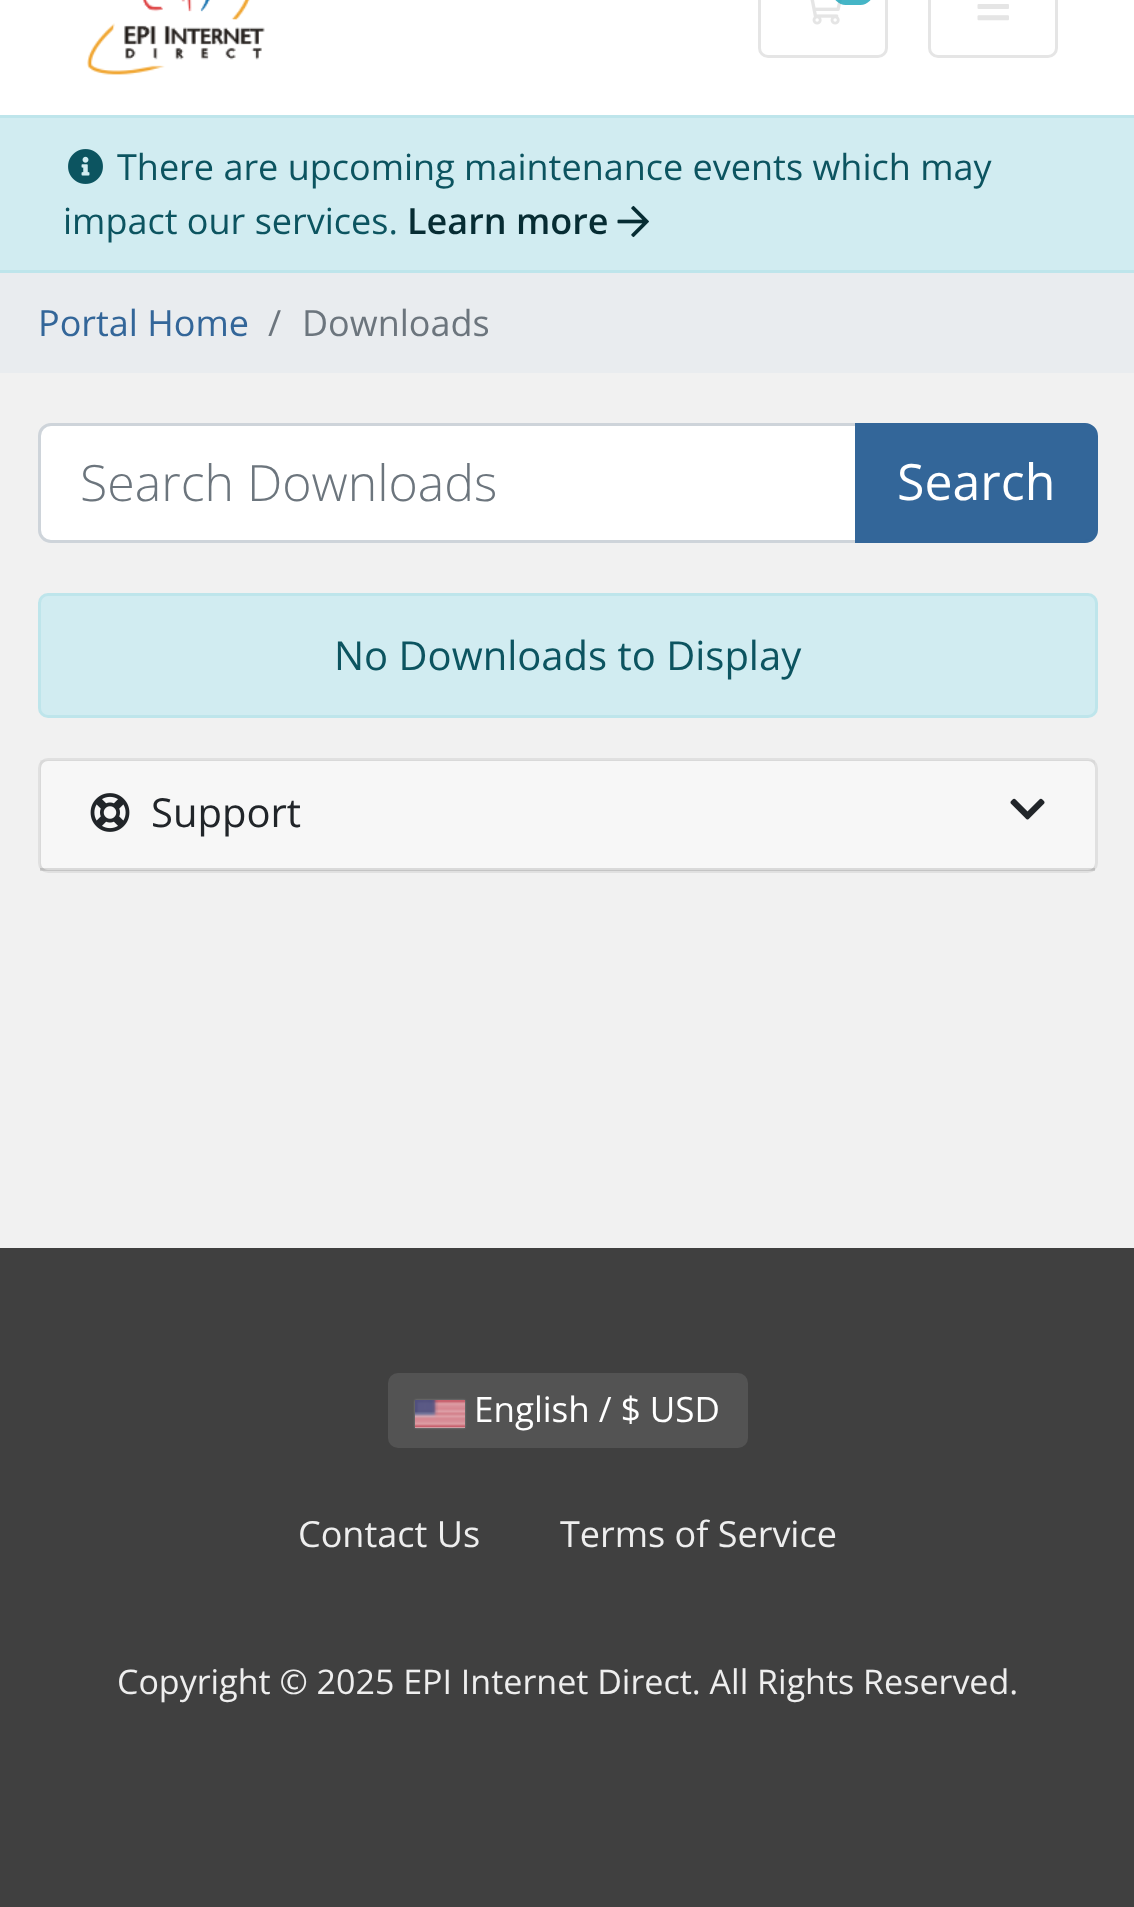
<!DOCTYPE html>
<meta charset="utf-8">
<style>body { margin: 0 } canvas { display: block }</style>
<canvas id="canvas" width="1134" height="1907"></canvas>
<img id="img1" src="img_01.png" hidden>
<img id="img2" src="img_02.png" hidden>
<img id="img3" src="img_03.png" hidden>
<img id="img4" src="img_04.png" hidden>
<img id="img5" src="img_05.png" hidden>
<img id="img6" src="img_06.png" hidden>
<img id="img7" src="img_07.png" hidden>
<img id="img8" src="img_08.png" hidden>
<script>
window.onload = function () {
	const canvas = document.getElementById("canvas");
	const ctx = canvas.getContext("2d");
	ctx.miterLimit = 4;
	ctx.fontKerning = "normal";
	function txt(s, x, y) {
		ctx.fillText(s, x, y);
	}
	function fill(x, y, w, h) {
		ctx.fillRect(x, y, w, h);
	}
	function round(x, y, w, h, r) {
		ctx.beginPath();
		ctx.roundRect(x, y, w, h, r);
		ctx.fill();
	}
	function img(id, x, y, w, h) {
		ctx.drawImage(document.getElementById(id), x, y, w, h);
	}

	ctx.fillStyle = "#F1F1F1";
	fill(0, 0, 1134, 1907);
	ctx.fillStyle = "#FFFFFF";
	fill(0, 0, 1134, 115);
	img("img1", 87, 0, 178, 75);
	ctx.beginPath();
	ctx.roundRect(759.5, -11.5, 127, 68, 8.5);
	ctx.strokeStyle = "#E5E5E5";
	ctx.lineWidth = 3;
	ctx.stroke();
	img("img2", 810, 0, 32, 25);
	ctx.fillStyle = "rgba(23, 162, 184, 0.8)";
	round(833, -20, 40, 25, 20);
	ctx.beginPath();
	ctx.roundRect(929.5, -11.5, 127, 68, 8.5);
	ctx.stroke();
	img("img3", 977, 4, 32, 17);
	ctx.fillStyle = "#D1ECF1";
	fill(0, 118, 1134, 152);
	ctx.fillStyle = "#BEE5EB";
	fill(0, 115, 1134, 3);
	fill(0, 270, 1134, 3);
	img("img4", 68, 149, 35, 35);
	img("img5", 617, 205, 32, 33);
	ctx.fillStyle = "#E9ECEF";
	fill(0, 273, 1134, 100);
	ctx.fillStyle = "#FFFFFF";
	ctx.beginPath();
	ctx.roundRect(39.5, 424.5, 817, 117, [11.5, 0, 0, 11.5]);
	ctx.fill();
	ctx.strokeStyle = "#CED4DA";
	ctx.stroke();
	ctx.fillStyle = "#336699";
	ctx.beginPath();
	ctx.roundRect(856.5, 424.5, 240, 117, [0, 11.5, 11.5, 0]);
	ctx.fill();
	ctx.strokeStyle = "#336699";
	ctx.stroke();
	ctx.fillStyle = "#D1ECF1";
	ctx.beginPath();
	ctx.roundRect(39.5, 594.5, 1057, 122, 8.5);
	ctx.fill();
	ctx.strokeStyle = "#BEE5EB";
	ctx.stroke();
	ctx.fillStyle = "#FFFFFF";
	round(38, 758, 1060, 115, 10);
	ctx.beginPath();
	ctx.roundRect(39.5, 759.5, 1057, 112, 8.5);
	ctx.strokeStyle = "rgba(0, 0, 0, 0.12)";
	ctx.stroke();
	ctx.fillStyle = "rgba(0, 0, 0, 0.03)";
	fill(40, 760, 1055, 110);
	ctx.fillStyle = "rgba(0, 0, 0, 0.12)";
	fill(40, 868, 1055, 3);
	img("img6", 90, 793, 40, 39);
	img("img7", 1010, 798, 35, 22);
	ctx.fillStyle = "#404040";
	fill(0, 1248, 1134, 659);
	ctx.fillStyle = "#535353";
	round(388, 1373, 360, 75, 10);
	ctx.fillStyle = "#888888";
	ctx.filter = "blur(1px)";
	ctx.beginPath();
	ctx.rect(415, 1400, 50, 28);
	ctx.fill();
	ctx.filter = "none";
	ctx.fillStyle = "#DBDBDB";
	fill(415, 1427, 50, 1);
	img("img8", 415, 1400, 50, 28);
	ctx.font = "36px Open Sans";
	ctx.fillStyle = "#0C5460";
	txt("There are upcoming maintenance events which may", 117, 180);
	txt("impact our services.", 63, 234);
	ctx.font = "600 36px Open Sans";
	ctx.fillStyle = "#062C33";
	txt("Learn more", 407, 234);
	ctx.font = "36px Open Sans";
	ctx.fillStyle = "#336699";
	txt("Portal Home", 38, 336);
	ctx.fillStyle = "#6C757D";
	txt("/", 268, 336);
	txt("Downloads", 302, 336);
	ctx.font = "300 50px Open Sans";
	txt("Search Downloads", 80, 501);
	ctx.font = "50px Open Sans";
	ctx.fillStyle = "#FFFFFF";
	txt("Search", 897, 500);
	ctx.font = "40px Open Sans";
	ctx.fillStyle = "#0C5460";
	txt("No Downloads to Display", 334, 670);
	ctx.fillStyle = "#212529";
	txt("Support", 151, 827);
	ctx.font = "35px Open Sans";
	ctx.fillStyle = "#FFFFFF";
	txt("English / $ USD", 474, 1422);
	ctx.font = "36px Open Sans";
	ctx.fillStyle = "#EEEEEE";
	txt("Contact Us", 298, 1547);
	txt("Terms of Service", 560, 1547);
	ctx.font = "34px Open Sans";
	txt("Copyright © 2025 EPI Internet Direct. All Rights Reserved.", 117, 1694);
};
</script>
